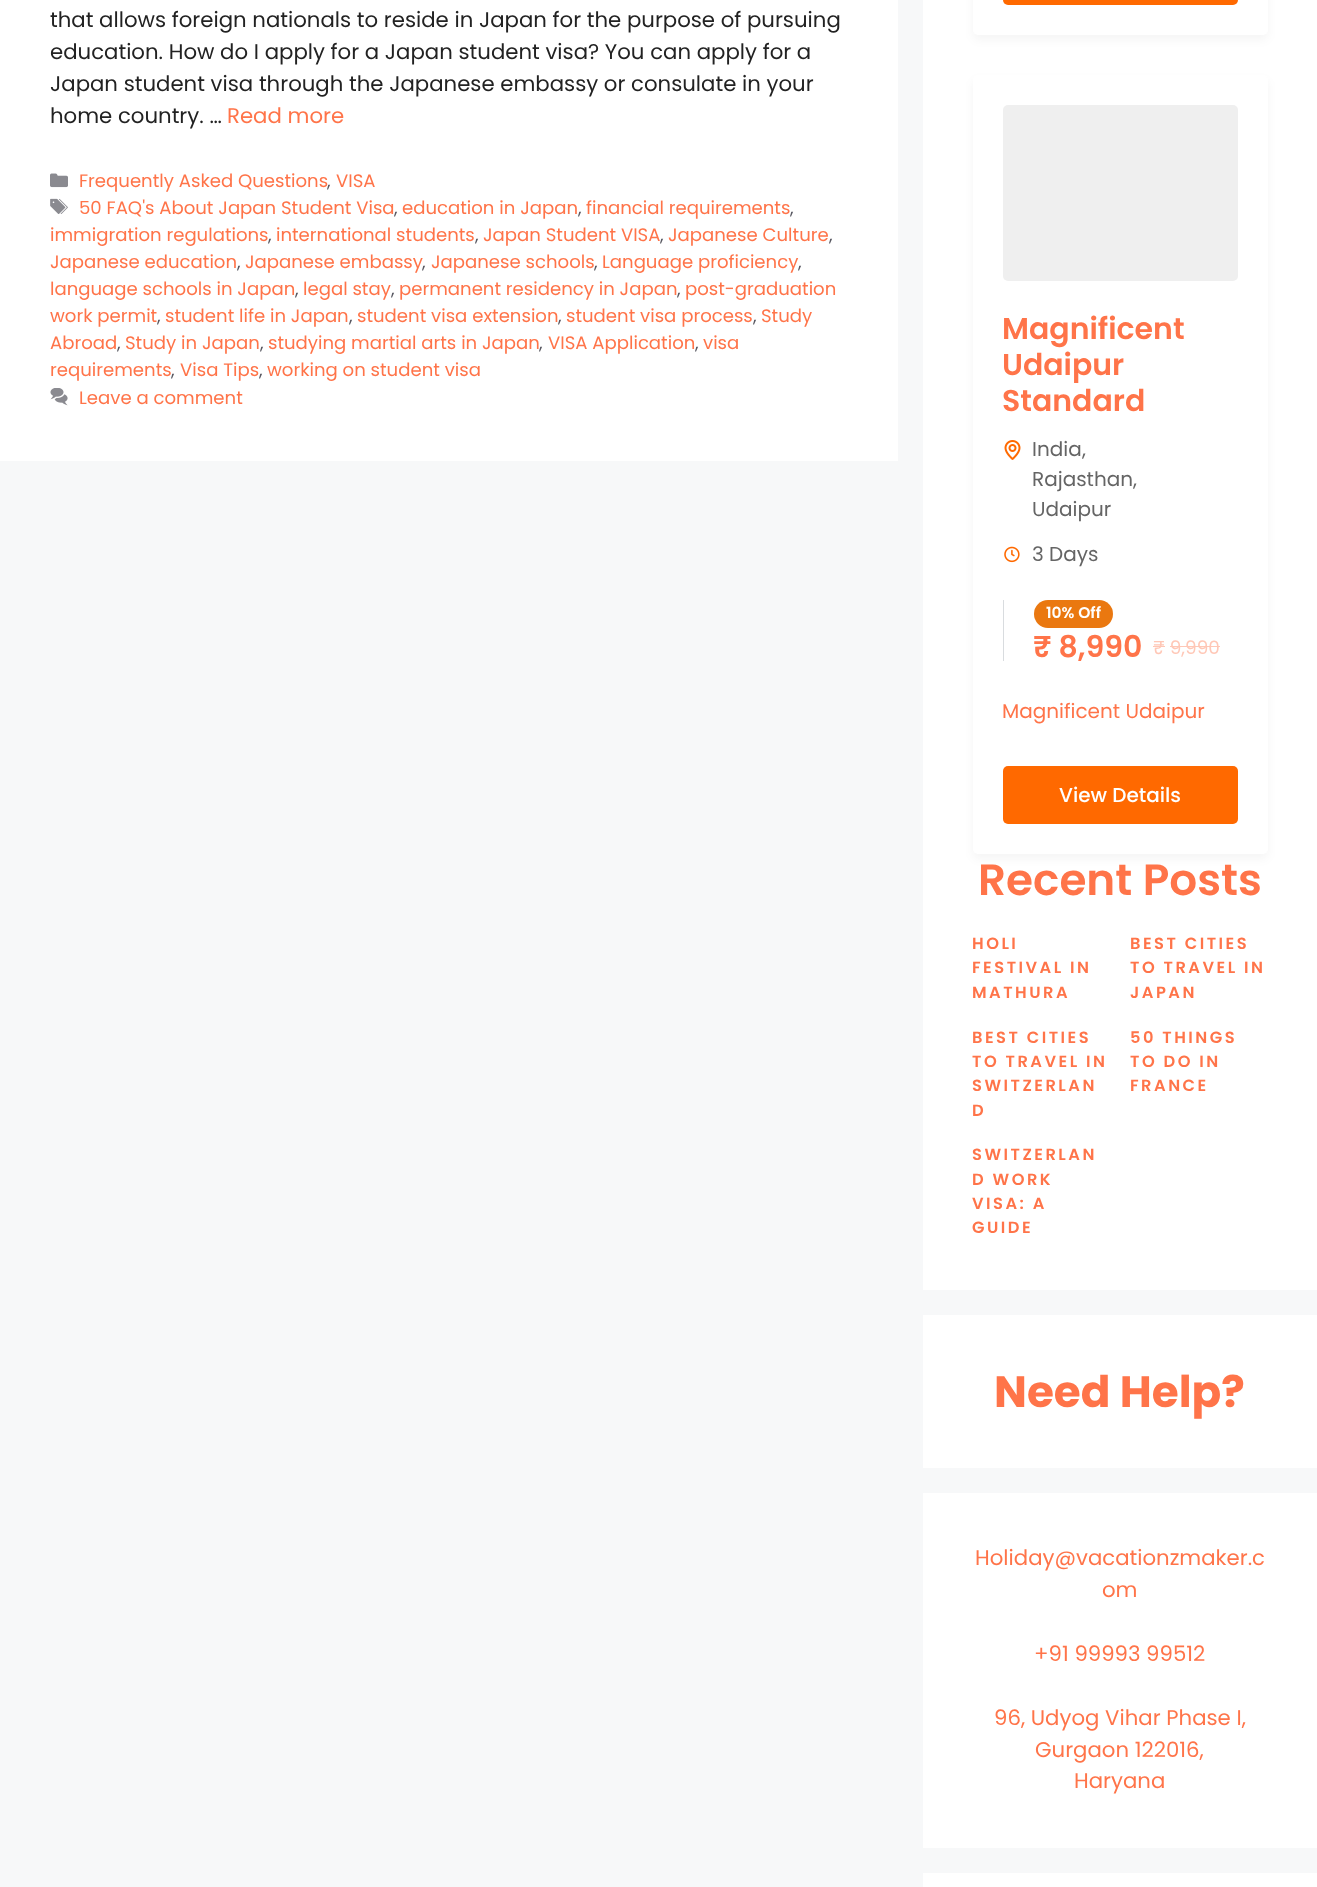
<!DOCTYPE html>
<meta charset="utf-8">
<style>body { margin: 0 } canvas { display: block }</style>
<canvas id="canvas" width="1317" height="1887"></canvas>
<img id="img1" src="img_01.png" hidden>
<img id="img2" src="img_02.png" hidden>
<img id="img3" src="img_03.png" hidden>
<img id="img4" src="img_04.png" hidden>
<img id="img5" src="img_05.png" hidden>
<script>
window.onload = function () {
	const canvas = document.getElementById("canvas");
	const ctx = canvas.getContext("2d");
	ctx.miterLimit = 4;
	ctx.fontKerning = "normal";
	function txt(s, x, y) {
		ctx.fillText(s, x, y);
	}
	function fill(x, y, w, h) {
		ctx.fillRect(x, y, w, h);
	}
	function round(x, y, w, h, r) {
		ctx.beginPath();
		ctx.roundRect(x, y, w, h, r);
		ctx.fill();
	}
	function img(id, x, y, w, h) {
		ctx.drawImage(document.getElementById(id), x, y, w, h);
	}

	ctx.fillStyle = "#F7F8F9";
	fill(0, 0, 1317, 1887);
	ctx.fillStyle = "#FFFFFF";
	fill(0, 0, 898, 461);
	img("img1", 50, 173, 18, 15);
	img("img2", 50, 198, 18, 16);
	img("img3", 50, 388, 18, 18);
	fill(923, 0, 394, 1290);
	ctx.fillStyle = "rgba(0, 0, 0, 0.04)";
	ctx.filter = "blur(5px)";
	ctx.beginPath();
	ctx.roundRect(973, -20, 295, 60, 5);
	ctx.fill();
	ctx.filter = "none";
	ctx.fillStyle = "#FFFFFF";
	round(973, -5, 295, 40, 5);
	ctx.fillStyle = "#FF6900";
	round(1003, -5, 235, 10, 5);
	ctx.fillStyle = "rgba(0, 0, 0, 0.04)";
	ctx.filter = "blur(5px)";
	ctx.beginPath();
	ctx.roundRect(973, 80, 295, 779, 5);
	ctx.fill();
	ctx.filter = "none";
	ctx.fillStyle = "#FFFFFF";
	round(973, 75, 295, 779, 5);
	ctx.fillStyle = "#EFEFEF";
	round(1003, 105, 235, 176, 5);
	img("img4", 1004, 440, 17, 20);
	img("img5", 1004, 546, 16, 17);
	ctx.fillStyle = "#D9DCDF";
	fill(1003, 600, 1, 61);
	ctx.fillStyle = "#EA7810";
	round(1034, 600, 79, 28, 14);
	ctx.fillStyle = "#FFC7B6";
	fill(1153, 646, 12, 1);
	fill(1170, 646, 50, 1);
	ctx.fillStyle = "#FF6900";
	round(1003, 766, 235, 58, 5);
	ctx.fillStyle = "#FFFFFF";
	fill(923, 1315, 394, 153);
	fill(923, 1493, 394, 355);
	fill(923, 1873, 394, 14);
	ctx.font = "21.25px Poppins";
	ctx.fillStyle = "#222222";
	txt("that allows foreign nationals to reside in Japan for the purpose of pursuing", 50, 27);
	txt("education. How do I apply for a Japan student visa? You can apply for a", 50, 59);
	txt("Japan student visa through the Japanese embassy or consulate in your", 50, 91);
	txt("home country. …", 50, 123);
	ctx.fillStyle = "#FF7449";
	txt("Read more", 227, 123);
	ctx.font = "18.1px Poppins";
	txt("Frequently Asked Questions", 79, 187);
	ctx.fillStyle = "#575760";
	txt(",", 327, 187);
	ctx.fillStyle = "#FF7449";
	txt("VISA", 336, 187);
	txt("50 FAQ's About Japan Student Visa", 79, 214);
	ctx.fillStyle = "#575760";
	txt(",", 394, 214);
	ctx.fillStyle = "#FF7449";
	txt("education in Japan", 402, 214);
	ctx.fillStyle = "#575760";
	txt(",", 578, 214);
	ctx.fillStyle = "#FF7449";
	txt("financial requirements", 586, 214);
	ctx.fillStyle = "#575760";
	txt(",", 790, 214);
	ctx.fillStyle = "#FF7449";
	txt("immigration regulations", 50, 241);
	ctx.fillStyle = "#575760";
	txt(",", 268, 241);
	ctx.fillStyle = "#FF7449";
	txt("international students", 276, 241);
	ctx.fillStyle = "#575760";
	txt(",", 475, 241);
	ctx.fillStyle = "#FF7449";
	txt("Japan Student VISA", 483, 241);
	ctx.fillStyle = "#575760";
	txt(",", 660, 241);
	ctx.fillStyle = "#FF7449";
	txt("Japanese Culture", 668, 241);
	ctx.fillStyle = "#575760";
	txt(",", 829, 241);
	ctx.fillStyle = "#FF7449";
	txt("Japanese education", 50, 268);
	ctx.fillStyle = "#575760";
	txt(",", 237, 268);
	ctx.fillStyle = "#FF7449";
	txt("Japanese embassy", 245, 268);
	ctx.fillStyle = "#575760";
	txt(",", 422, 268);
	ctx.fillStyle = "#FF7449";
	txt("Japanese schools", 431, 268);
	ctx.fillStyle = "#575760";
	txt(",", 594, 268);
	ctx.fillStyle = "#FF7449";
	txt("Language proficiency", 602, 268);
	ctx.fillStyle = "#575760";
	txt(",", 798, 268);
	ctx.fillStyle = "#FF7449";
	txt("language schools in Japan", 50, 295);
	ctx.fillStyle = "#575760";
	txt(",", 295, 295);
	ctx.fillStyle = "#FF7449";
	txt("legal stay", 303, 295);
	ctx.fillStyle = "#575760";
	txt(",", 391, 295);
	ctx.fillStyle = "#FF7449";
	txt("permanent residency in Japan", 399, 295);
	ctx.fillStyle = "#575760";
	txt(",", 677, 295);
	ctx.fillStyle = "#FF7449";
	txt("post-graduation", 685, 295);
	txt("work permit", 50, 322);
	ctx.fillStyle = "#575760";
	txt(",", 157, 322);
	ctx.fillStyle = "#FF7449";
	txt("student life in Japan", 165, 322);
	ctx.fillStyle = "#575760";
	txt(",", 349, 322);
	ctx.fillStyle = "#FF7449";
	txt("student visa extension", 357, 322);
	ctx.fillStyle = "#575760";
	txt(",", 558, 322);
	ctx.fillStyle = "#FF7449";
	txt("student visa process", 566, 322);
	ctx.fillStyle = "#575760";
	txt(",", 753, 322);
	ctx.fillStyle = "#FF7449";
	txt("Study", 761, 322);
	txt("Abroad", 50, 349);
	ctx.fillStyle = "#575760";
	txt(",", 117, 349);
	ctx.fillStyle = "#FF7449";
	txt("Study in Japan", 125, 349);
	ctx.fillStyle = "#575760";
	txt(",", 260, 349);
	ctx.fillStyle = "#FF7449";
	txt("studying martial arts in Japan", 268, 349);
	ctx.fillStyle = "#575760";
	txt(",", 539, 349);
	ctx.fillStyle = "#FF7449";
	txt("VISA Application", 548, 349);
	ctx.fillStyle = "#575760";
	txt(",", 695, 349);
	ctx.fillStyle = "#FF7449";
	txt("visa", 703, 349);
	txt("requirements", 50, 376);
	ctx.fillStyle = "#575760";
	txt(",", 171, 376);
	ctx.fillStyle = "#FF7449";
	txt("Visa Tips", 180, 376);
	ctx.fillStyle = "#575760";
	txt(",", 259, 376);
	ctx.fillStyle = "#FF7449";
	txt("working on student visa", 267, 376);
	txt("Leave a comment", 79, 404);
	ctx.font = "600 30px Poppins";
	txt("Magnificent", 1002, 339);
	txt("Udaipur", 1002, 375);
	txt("Standard", 1002, 411);
	ctx.font = "20px Poppins";
	ctx.fillStyle = "#656565";
	txt("India", 1032, 456);
	txt(",", 1082, 456);
	txt("Rajasthan", 1032, 486);
	txt(",", 1133, 486);
	txt("Udaipur", 1032, 516);
	txt("3 Days", 1032, 561);
	ctx.font = "600 15.5px Poppins";
	ctx.fillStyle = "#FFFFFF";
	txt("10% Off", 1046, 618);
	ctx.font = "600 30px Poppins";
	ctx.fillStyle = "#FF7449";
	txt("₹ 8,990", 1033, 657);
	ctx.font = "18.5px Poppins";
	ctx.fillStyle = "#FFC7B6";
	txt("₹ 9,990", 1153, 654);
	ctx.font = "20px Poppins";
	ctx.fillStyle = "#FF7449";
	txt("Magnificent Udaipur", 1002, 718);
	ctx.font = "500 20px Poppins";
	ctx.fillStyle = "#FFFFFF";
	txt("View Details", 1059, 802);
	ctx.font = "600 43.75px Poppins";
	ctx.fillStyle = "#FF7449";
	txt("Recent Posts", 978, 895);
	ctx.letterSpacing = "2.5px";
	ctx.font = "600 16.25px Poppins";
	txt("HOLI", 972, 949);
	txt("FESTIVAL IN", 972, 973);
	txt("MATHURA", 972, 998);
	txt("BEST CITIES", 1130, 949);
	txt("TO TRAVEL IN", 1130, 973);
	txt("JAPAN", 1130, 998);
	txt("BEST CITIES", 972, 1043);
	txt("TO TRAVEL IN", 972, 1067);
	txt("SWITZERLAN", 972, 1091);
	txt("D", 972, 1116);
	txt("50 THINGS", 1130, 1043);
	txt("TO DO IN", 1130, 1067);
	txt("FRANCE", 1130, 1091);
	txt("SWITZERLAN", 972, 1160);
	txt("D WORK", 972, 1185);
	txt("VISA: A", 972, 1209);
	txt("GUIDE", 972, 1233);
	ctx.letterSpacing = "0px";
	ctx.font = "bold 43.75px Poppins";
	txt("Need Help?", 994, 1407);
	ctx.font = "21.25px Poppins";
	txt("Holiday@vacationzmaker.c", 975, 1565);
	txt("om", 1102, 1597);
	txt("+91 99993 99512", 1034, 1661);
	txt("96, Udyog Vihar Phase I,", 994, 1725);
	txt("Gurgaon 122016,", 1035, 1757);
	txt("Haryana", 1074, 1788);
};
</script>
